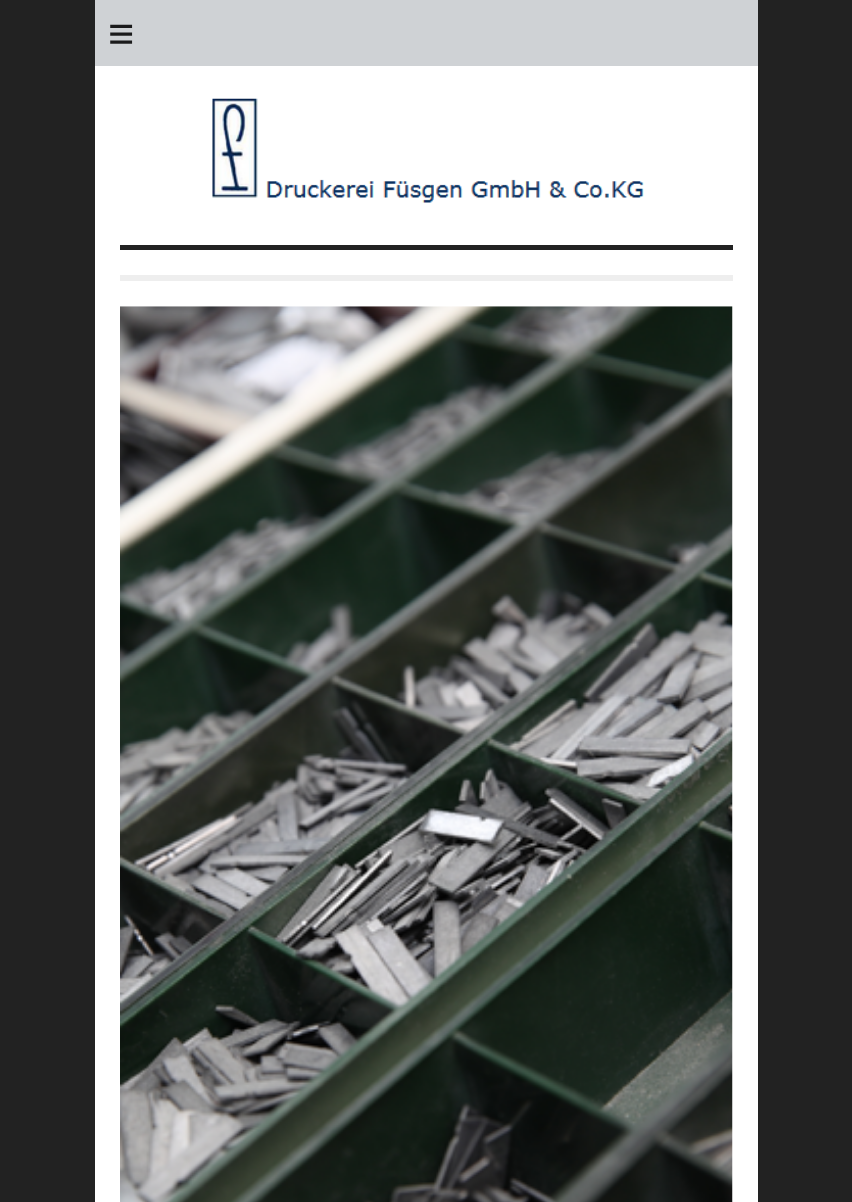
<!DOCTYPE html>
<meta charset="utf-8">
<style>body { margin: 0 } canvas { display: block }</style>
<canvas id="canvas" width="852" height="1202"></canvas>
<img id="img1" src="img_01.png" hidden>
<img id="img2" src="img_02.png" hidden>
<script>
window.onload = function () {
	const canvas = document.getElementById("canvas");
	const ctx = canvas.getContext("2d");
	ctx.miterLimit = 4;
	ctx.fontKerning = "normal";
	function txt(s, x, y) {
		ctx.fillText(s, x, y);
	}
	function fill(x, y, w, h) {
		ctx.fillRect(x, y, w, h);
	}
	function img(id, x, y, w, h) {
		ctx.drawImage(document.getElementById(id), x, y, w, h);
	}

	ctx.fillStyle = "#222222";
	fill(0, 0, 852, 1202);
	ctx.fillStyle = "#CFD2D5";
	fill(95, 0, 663, 66);
	ctx.fillStyle = "#FFFFFF";
	fill(95, 66, 663, 1136);
	img("img1", 212, 98, 432, 105);
	ctx.fillStyle = "#222222";
	fill(120, 245, 613, 5);
	ctx.fillStyle = "#EEEEEE";
	fill(120, 275, 613, 6);
	img("img2", 120, 306, 613, 896);
	ctx.letterSpacing = "13px";
	ctx.font = "45px Liberation Sans";
	ctx.fillStyle = "#1A1A1B";
	txt("≡", 108, 49);
};
</script>
